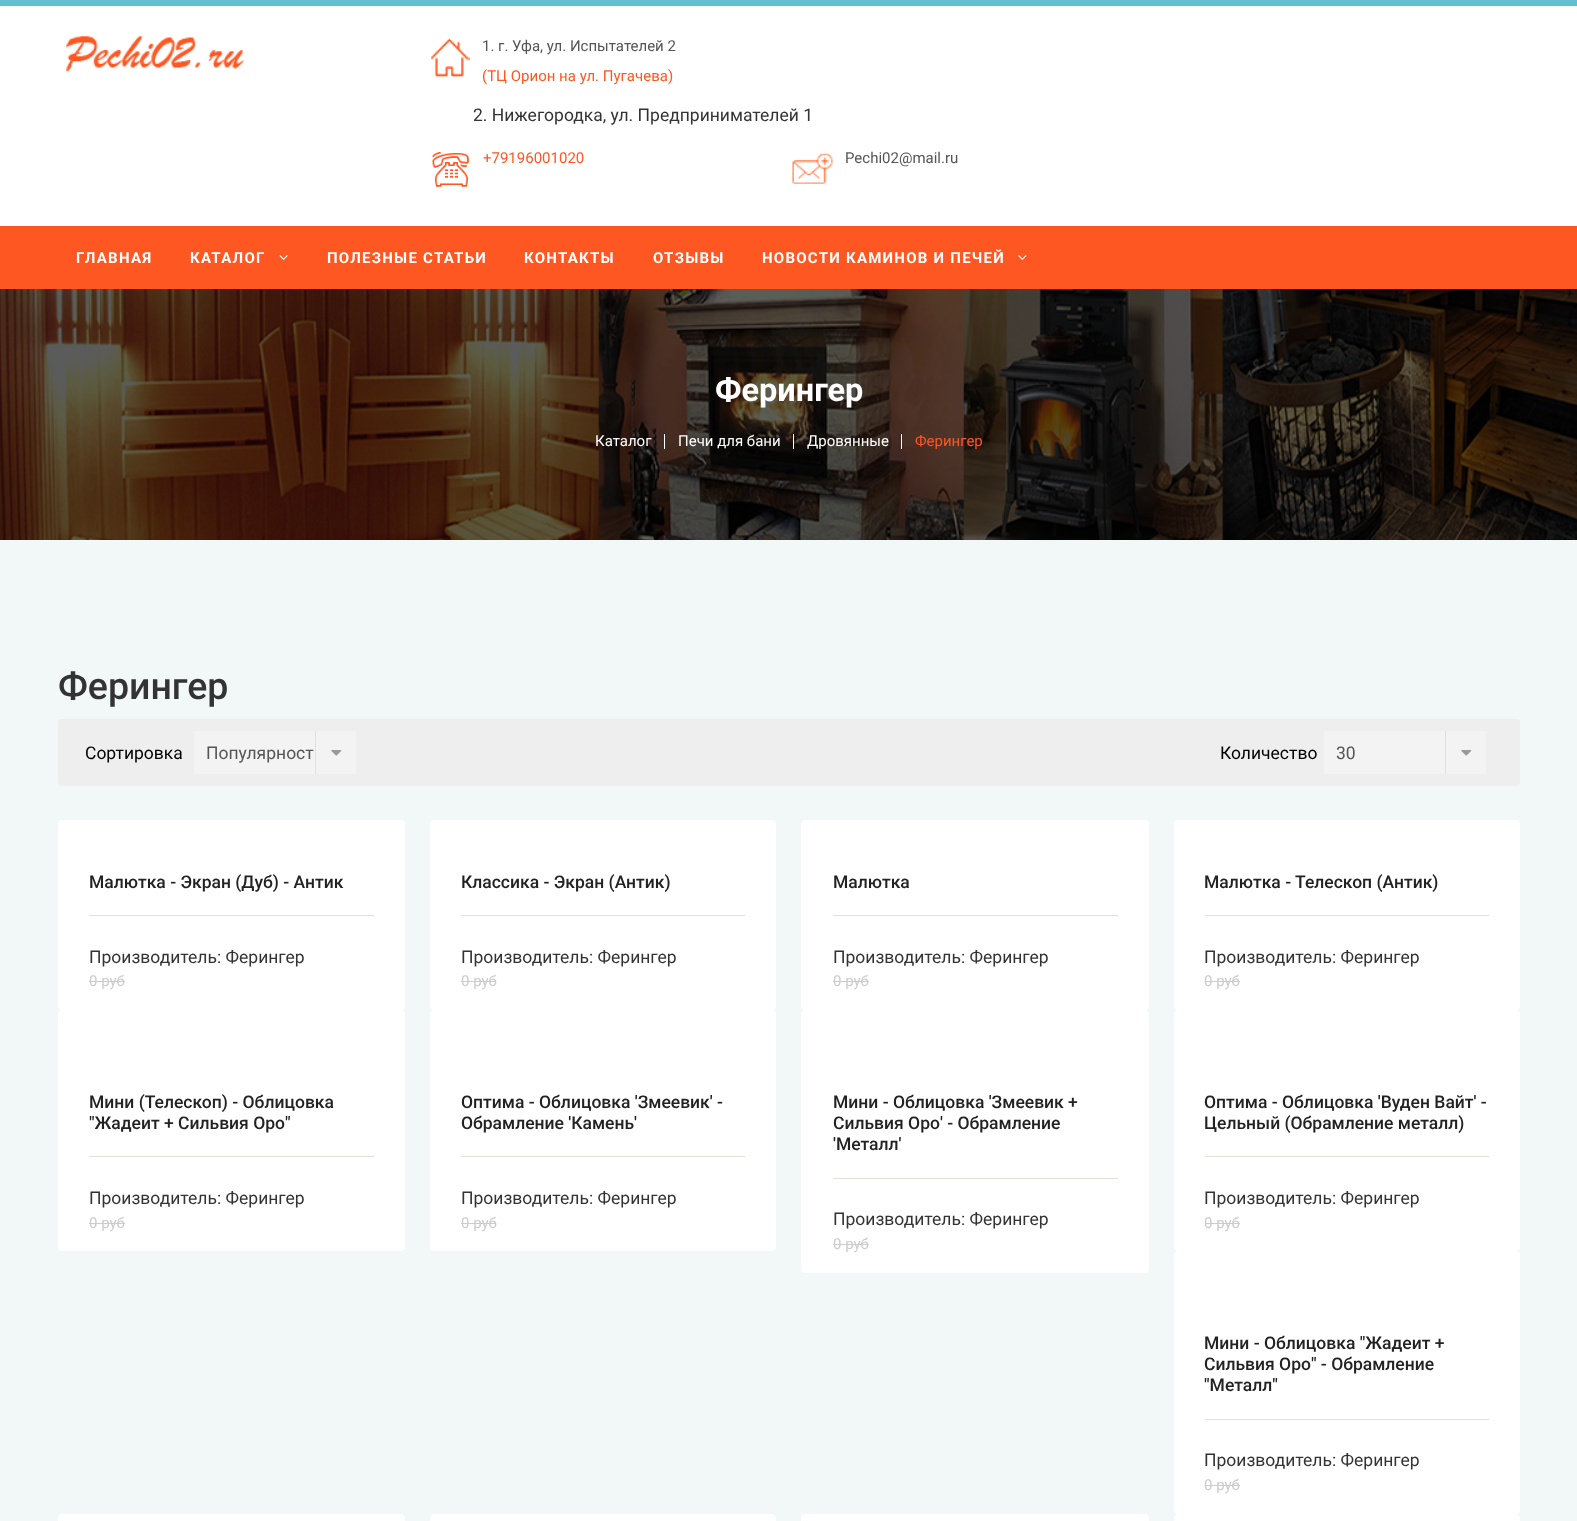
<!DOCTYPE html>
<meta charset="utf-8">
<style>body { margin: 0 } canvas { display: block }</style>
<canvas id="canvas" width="1577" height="1521"></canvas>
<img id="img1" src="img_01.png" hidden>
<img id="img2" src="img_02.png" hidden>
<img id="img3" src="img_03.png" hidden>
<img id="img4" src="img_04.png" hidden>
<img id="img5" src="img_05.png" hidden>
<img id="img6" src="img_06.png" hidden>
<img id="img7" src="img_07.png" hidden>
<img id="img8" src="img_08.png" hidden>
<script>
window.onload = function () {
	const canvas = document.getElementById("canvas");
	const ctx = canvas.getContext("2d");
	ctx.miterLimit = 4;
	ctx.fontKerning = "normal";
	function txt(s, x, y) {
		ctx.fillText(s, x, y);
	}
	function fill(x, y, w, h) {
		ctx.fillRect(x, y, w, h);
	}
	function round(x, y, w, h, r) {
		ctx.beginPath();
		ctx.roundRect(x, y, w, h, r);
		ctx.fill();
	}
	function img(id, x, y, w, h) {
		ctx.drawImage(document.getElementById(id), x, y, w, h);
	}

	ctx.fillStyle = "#F2F7F7";
	fill(0, 0, 1577, 1521);
	ctx.fillStyle = "#FFFFFF";
	fill(0, 6, 1577, 220);
	ctx.fillStyle = "#64C0D1";
	fill(0, 0, 1577, 6);
	img("img1", 65, 36, 179, 36);
	img("img2", 431, 38, 39, 39);
	img("img3", 432, 152, 37, 35);
	img("img4", 792, 153, 41, 31);
	ctx.fillStyle = "#FF5722";
	fill(0, 226, 1577, 63);
	img("img5", 279, 255, 9, 5);
	img("img6", 1018, 255, 9, 5);
	img("img7", 0, 289, 1577, 251);
	ctx.fillStyle = "#FFFFFF";
	fill(664, 434, 1, 15);
	fill(793, 434, 1, 15);
	fill(901, 434, 1, 15);
	ctx.fillStyle = "#EEEEEE";
	round(58, 719, 1462, 67, 4);
	ctx.fillStyle = "#F3F3F3";
	fill(194, 731, 121, 43);
	fill(316, 731, 40, 43);
	ctx.fillStyle = "#DFDFDF";
	fill(315, 731, 1, 43);
	img("img8", 331, 750, 11, 6);
	ctx.fillStyle = "#F3F3F3";
	fill(1324, 731, 162, 43);
	ctx.fillStyle = "#DFDFDF";
	fill(1445, 731, 1, 43);
	img("img8", 1461, 750, 11, 6);
	ctx.fillStyle = "#FFFFFF";
	ctx.beginPath();
	ctx.roundRect(58, 820, 347, 30, [4, 4, 0, 0]);
	ctx.fill();
	ctx.beginPath();
	ctx.roundRect(58, 850, 347, 160, [0, 0, 4, 4]);
	ctx.fill();
	ctx.fillStyle = "#E1E1D8";
	fill(89, 915, 285, 1);
	ctx.fillStyle = "#CCCCCC";
	fill(89, 981, 36, 1);
	ctx.fillStyle = "#FFFFFF";
	ctx.beginPath();
	ctx.roundRect(430, 820, 346, 30, [4, 4, 0, 0]);
	ctx.fill();
	ctx.beginPath();
	ctx.roundRect(430, 850, 346, 160, [0, 0, 4, 4]);
	ctx.fill();
	ctx.fillStyle = "#E1E1D8";
	fill(461, 915, 284, 1);
	ctx.fillStyle = "#CCCCCC";
	fill(461, 981, 35, 1);
	ctx.fillStyle = "#FFFFFF";
	ctx.beginPath();
	ctx.roundRect(801, 820, 348, 30, [4, 4, 0, 0]);
	ctx.fill();
	ctx.beginPath();
	ctx.roundRect(801, 850, 348, 160, [0, 0, 4, 4]);
	ctx.fill();
	ctx.fillStyle = "#E1E1D8";
	fill(833, 915, 285, 1);
	ctx.fillStyle = "#CCCCCC";
	fill(833, 981, 36, 1);
	ctx.fillStyle = "#FFFFFF";
	ctx.beginPath();
	ctx.roundRect(1174, 820, 346, 30, [4, 4, 0, 0]);
	ctx.fill();
	ctx.beginPath();
	ctx.roundRect(1174, 850, 346, 160, [0, 0, 4, 4]);
	ctx.fill();
	ctx.fillStyle = "#E1E1D8";
	fill(1205, 915, 284, 1);
	ctx.fillStyle = "#CCCCCC";
	fill(1205, 981, 35, 1);
	ctx.fillStyle = "#FFFFFF";
	ctx.beginPath();
	ctx.roundRect(58, 1010, 347, 60, [4, 4, 0, 0]);
	ctx.fill();
	ctx.beginPath();
	ctx.roundRect(58, 1070, 347, 181, [0, 0, 4, 4]);
	ctx.fill();
	ctx.fillStyle = "#E1E1D8";
	fill(89, 1156, 285, 1);
	ctx.fillStyle = "#CCCCCC";
	fill(89, 1223, 36, 1);
	ctx.fillStyle = "#FFFFFF";
	ctx.beginPath();
	ctx.roundRect(430, 1010, 346, 60, [4, 4, 0, 0]);
	ctx.fill();
	ctx.beginPath();
	ctx.roundRect(430, 1070, 346, 181, [0, 0, 4, 4]);
	ctx.fill();
	ctx.fillStyle = "#E1E1D8";
	fill(461, 1156, 284, 1);
	ctx.fillStyle = "#CCCCCC";
	fill(461, 1223, 35, 1);
	ctx.fillStyle = "#FFFFFF";
	ctx.beginPath();
	ctx.roundRect(801, 1010, 348, 60, [4, 4, 0, 0]);
	ctx.fill();
	ctx.beginPath();
	ctx.roundRect(801, 1070, 348, 203, [0, 0, 4, 4]);
	ctx.fill();
	ctx.fillStyle = "#E1E1D8";
	fill(833, 1178, 285, 1);
	ctx.fillStyle = "#CCCCCC";
	fill(833, 1244, 36, 1);
	ctx.fillStyle = "#FFFFFF";
	ctx.beginPath();
	ctx.roundRect(1174, 1010, 346, 60, [4, 4, 0, 0]);
	ctx.fill();
	ctx.beginPath();
	ctx.roundRect(1174, 1070, 346, 181, [0, 0, 4, 4]);
	ctx.fill();
	ctx.fillStyle = "#E1E1D8";
	fill(1205, 1156, 284, 1);
	ctx.fillStyle = "#CCCCCC";
	fill(1205, 1223, 35, 1);
	ctx.fillStyle = "#FFFFFF";
	ctx.beginPath();
	ctx.roundRect(1174, 1251, 346, 60, [4, 4, 0, 0]);
	ctx.fill();
	ctx.beginPath();
	ctx.roundRect(1174, 1311, 346, 203, [0, 0, 4, 4]);
	ctx.fill();
	ctx.fillStyle = "#E1E1D8";
	fill(1205, 1419, 284, 1);
	ctx.fillStyle = "#CCCCCC";
	fill(1205, 1485, 35, 1);
	ctx.fillStyle = "#FFFFFF";
	ctx.beginPath();
	ctx.moveTo(62, 1514);
	ctx.lineTo(401, 1514);
	ctx.bezierCurveTo(403, 1514, 405, 1516, 405, 1518);
	ctx.lineTo(405, 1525);
	ctx.lineTo(58, 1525);
	ctx.lineTo(58, 1518);
	ctx.bezierCurveTo(58, 1516, 60, 1514, 62, 1514);
	ctx.closePath();
	ctx.fill();
	ctx.beginPath();
	ctx.moveTo(434, 1514);
	ctx.lineTo(772, 1514);
	ctx.bezierCurveTo(774, 1514, 776, 1516, 776, 1518);
	ctx.lineTo(776, 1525);
	ctx.lineTo(430, 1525);
	ctx.lineTo(430, 1518);
	ctx.bezierCurveTo(430, 1516, 432, 1514, 434, 1514);
	ctx.closePath();
	ctx.fill();
	ctx.beginPath();
	ctx.moveTo(805, 1514);
	ctx.lineTo(1145, 1514);
	ctx.bezierCurveTo(1147, 1514, 1149, 1516, 1149, 1518);
	ctx.lineTo(1149, 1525);
	ctx.lineTo(801, 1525);
	ctx.lineTo(801, 1518);
	ctx.bezierCurveTo(801, 1516, 803, 1514, 805, 1514);
	ctx.closePath();
	ctx.fill();
	ctx.beginPath();
	ctx.moveTo(1178, 1514);
	ctx.lineTo(1516, 1514);
	ctx.bezierCurveTo(1518, 1514, 1520, 1516, 1520, 1518);
	ctx.lineTo(1520, 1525);
	ctx.lineTo(1174, 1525);
	ctx.lineTo(1174, 1518);
	ctx.bezierCurveTo(1174, 1516, 1176, 1514, 1178, 1514);
	ctx.closePath();
	ctx.fill();
	ctx.font = "15px Roboto";
	ctx.fillStyle = "#555555";
	txt("1. г. Уфа, ул. Испытателей 2", 482, 51);
	ctx.fillStyle = "#FF5722";
	txt("(ТЦ Орион на ул. Пугачева)", 482, 81);
	ctx.font = "17.5px Roboto";
	ctx.fillStyle = "#333333";
	txt("2. Нижегородка, ул. Предпринимателей 1", 473, 121);
	ctx.font = "15px Roboto";
	ctx.fillStyle = "#FF5722";
	txt("+79196001020", 483, 163);
	ctx.fillStyle = "#555555";
	txt("Pechi02@mail.ru", 845, 163);
	ctx.letterSpacing = "1.25px";
	ctx.font = "bold 15px Roboto";
	ctx.fillStyle = "#FFFFFF";
	txt("ГЛАВНАЯ", 76, 263);
	txt("КАТАЛОГ", 190, 263);
	txt("ПОЛЕЗНЫЕ СТАТЬИ", 327, 263);
	txt("КОНТАКТЫ", 524, 263);
	txt("ОТЗЫВЫ", 653, 263);
	txt("НОВОСТИ КАМИНОВ И ПЕЧЕЙ", 762, 263);
	ctx.letterSpacing = "0px";
	ctx.font = "bold 32.5px Roboto";
	txt("Ферингер", 715, 401);
	ctx.font = "15px Roboto";
	txt("Каталог", 595, 446);
	txt("Печи для бани", 678, 446);
	txt("Дровянные", 807, 446);
	ctx.fillStyle = "#FF5722";
	txt("Ферингер", 915, 446);
	ctx.font = "500 37.5px Roboto";
	ctx.fillStyle = "#333333";
	txt("Ферингер", 58, 699);
	ctx.font = "17.5px Roboto";
	ctx.fillStyle = "#000000";
	txt("Сортировка", 85, 759);
	ctx.fillStyle = "#555555";
	txt("Популярност", 206, 759);
	ctx.fillStyle = "#000000";
	txt("Количество", 1220, 759);
	ctx.fillStyle = "#555555";
	txt("30", 1336, 759);
	ctx.font = "500 17.5px Roboto";
	ctx.fillStyle = "#222222";
	txt("Малютка - Экран (Дуб) - Антик", 89, 888);
	ctx.font = "17.5px Roboto";
	ctx.fillStyle = "#333333";
	txt("Производитель: Ферингер", 89, 963);
	ctx.font = "15px Roboto";
	ctx.fillStyle = "#CCCCCC";
	txt("0 руб", 89, 986);
	ctx.font = "500 17.5px Roboto";
	ctx.fillStyle = "#222222";
	txt("Классика - Экран (Антик)", 461, 888);
	ctx.font = "17.5px Roboto";
	ctx.fillStyle = "#333333";
	txt("Производитель: Ферингер", 461, 963);
	ctx.font = "15px Roboto";
	ctx.fillStyle = "#CCCCCC";
	txt("0 руб", 461, 986);
	ctx.font = "500 17.5px Roboto";
	ctx.fillStyle = "#222222";
	txt("Малютка", 833, 888);
	ctx.font = "17.5px Roboto";
	ctx.fillStyle = "#333333";
	txt("Производитель: Ферингер", 833, 963);
	ctx.font = "15px Roboto";
	ctx.fillStyle = "#CCCCCC";
	txt("0 руб", 833, 986);
	ctx.font = "500 17.5px Roboto";
	ctx.fillStyle = "#222222";
	txt("Малютка - Телескоп (Антик)", 1204, 888);
	ctx.font = "17.5px Roboto";
	ctx.fillStyle = "#333333";
	txt("Производитель: Ферингер", 1204, 963);
	ctx.font = "15px Roboto";
	ctx.fillStyle = "#CCCCCC";
	txt("0 руб", 1204, 986);
	ctx.font = "500 17.5px Roboto";
	ctx.fillStyle = "#222222";
	txt("Мини (Телескоп) - Облицовка", 89, 1108);
	txt("\"Жадеит + Сильвия Оро\"", 89, 1129);
	ctx.font = "17.5px Roboto";
	ctx.fillStyle = "#333333";
	txt("Производитель: Ферингер", 89, 1204);
	ctx.font = "15px Roboto";
	ctx.fillStyle = "#CCCCCC";
	txt("0 руб", 89, 1228);
	ctx.font = "500 17.5px Roboto";
	ctx.fillStyle = "#222222";
	txt("Оптима - Облицовка 'Змеевик' -", 461, 1108);
	txt("Обрамление 'Камень'", 461, 1129);
	ctx.font = "17.5px Roboto";
	ctx.fillStyle = "#333333";
	txt("Производитель: Ферингер", 461, 1204);
	ctx.font = "15px Roboto";
	ctx.fillStyle = "#CCCCCC";
	txt("0 руб", 461, 1228);
	ctx.font = "500 17.5px Roboto";
	ctx.fillStyle = "#222222";
	txt("Мини - Облицовка 'Змеевик +", 833, 1108);
	txt("Сильвия Оро' - Обрамление", 833, 1129);
	txt("'Металл'", 833, 1150);
	ctx.font = "17.5px Roboto";
	ctx.fillStyle = "#333333";
	txt("Производитель: Ферингер", 833, 1225);
	ctx.font = "15px Roboto";
	ctx.fillStyle = "#CCCCCC";
	txt("0 руб", 833, 1249);
	ctx.font = "500 17.5px Roboto";
	ctx.fillStyle = "#222222";
	txt("Оптима - Облицовка 'Вуден Вайт' -", 1204, 1108);
	txt("Цельный (Обрамление металл)", 1204, 1129);
	ctx.font = "17.5px Roboto";
	ctx.fillStyle = "#333333";
	txt("Производитель: Ферингер", 1204, 1204);
	ctx.font = "15px Roboto";
	ctx.fillStyle = "#CCCCCC";
	txt("0 руб", 1204, 1228);
	ctx.font = "500 17.5px Roboto";
	ctx.fillStyle = "#222222";
	txt("Мини - Облицовка \"Жадеит +", 1204, 1349);
	txt("Сильвия Оро\" - Обрамление", 1204, 1370);
	txt("\"Металл\"", 1204, 1391);
	ctx.font = "17.5px Roboto";
	ctx.fillStyle = "#333333";
	txt("Производитель: Ферингер", 1204, 1466);
	ctx.font = "15px Roboto";
	ctx.fillStyle = "#CCCCCC";
	txt("0 руб", 1204, 1490);
};
</script>
